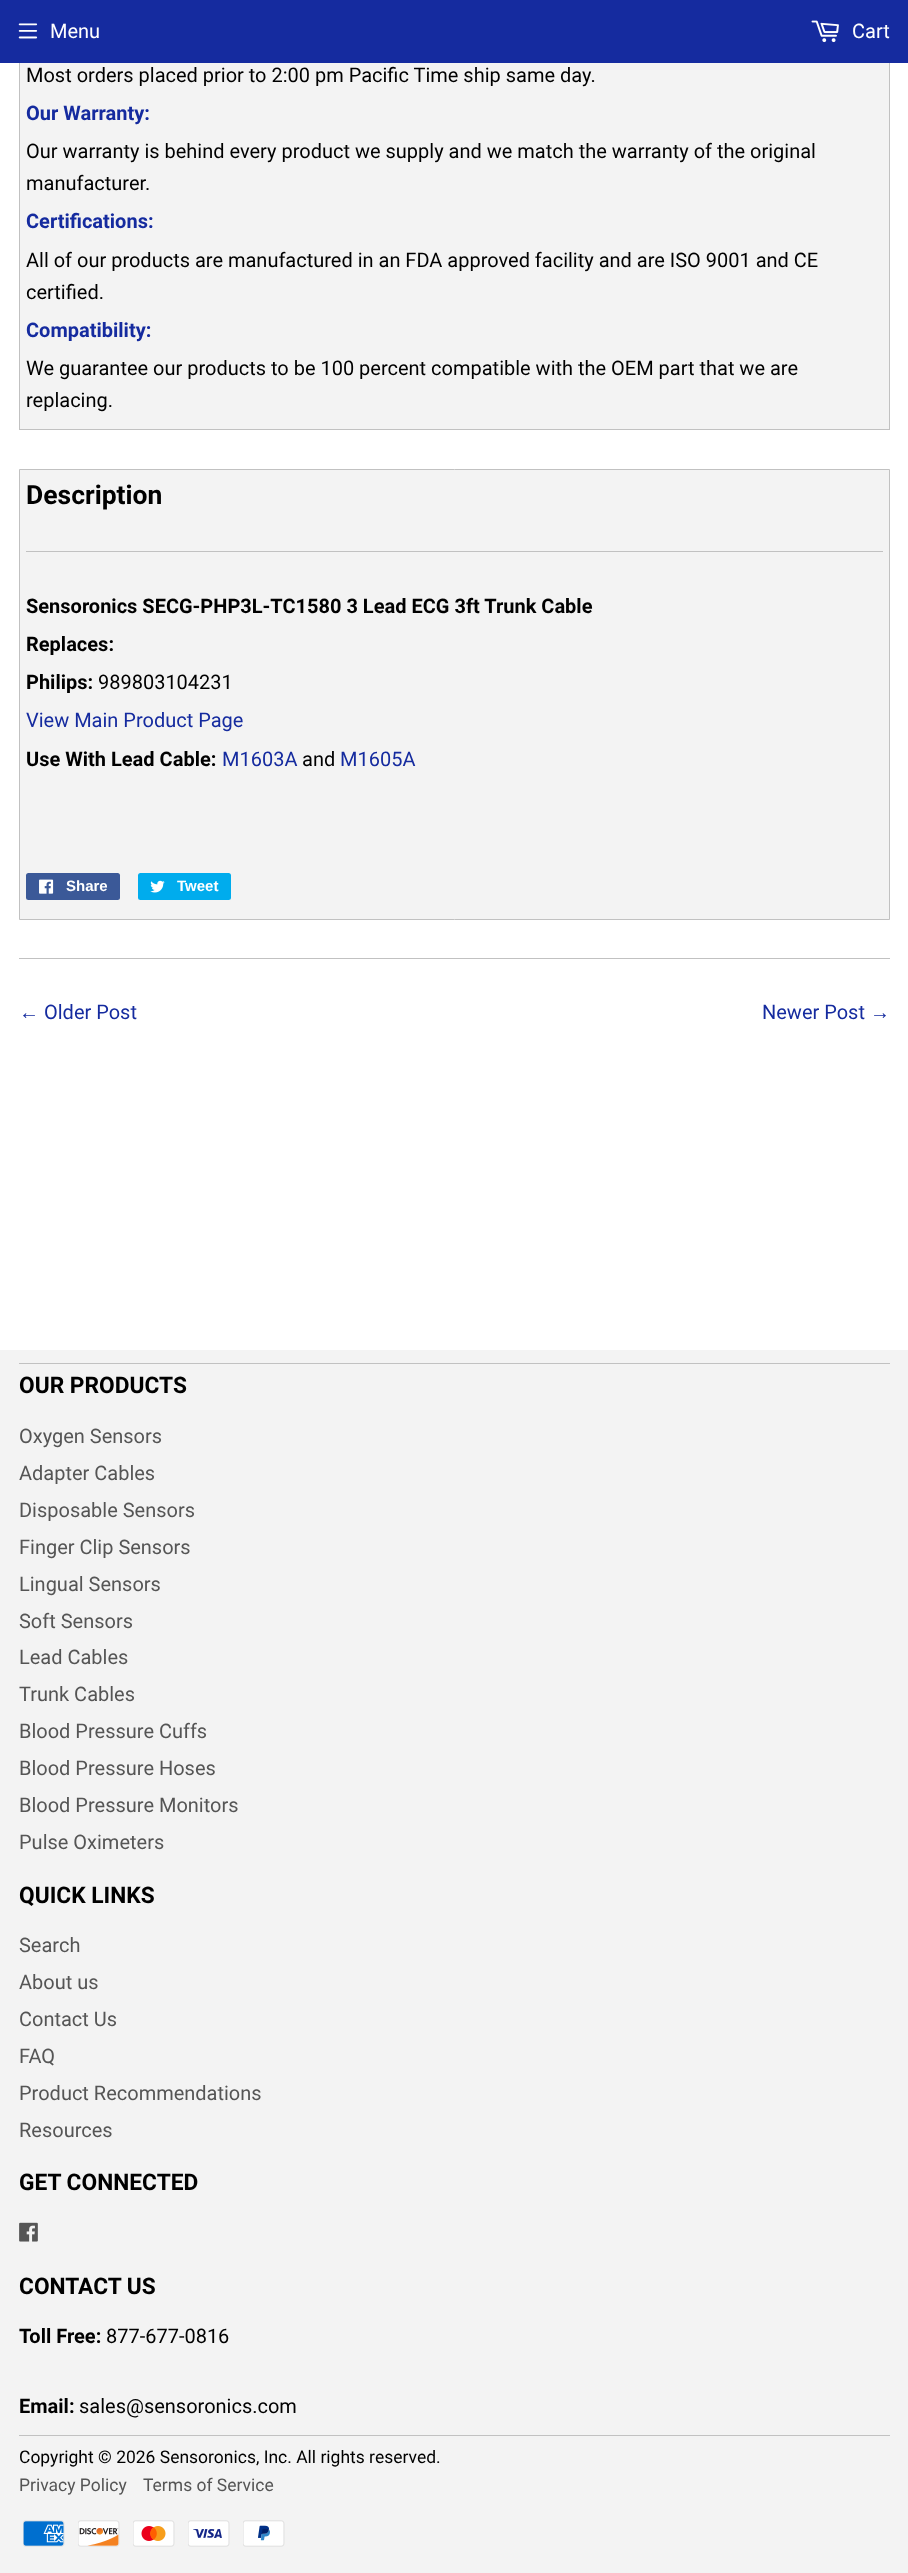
<!DOCTYPE html>
<meta charset="utf-8">
<style>body { margin: 0 } canvas { display: block }</style>
<canvas id="canvas" width="908" height="2573"></canvas>
<img id="img1" src="img_01.png" hidden>
<img id="img2" src="img_02.png" hidden>
<img id="img3" src="img_03.png" hidden>
<img id="img4" src="img_04.png" hidden>
<img id="img5" src="img_05.png" hidden>
<img id="img6" src="img_06.png" hidden>
<img id="img7" src="img_07.png" hidden>
<img id="img8" src="img_08.png" hidden>
<img id="img9" src="img_09.png" hidden>
<img id="img10" src="img_10.png" hidden>
<script>
window.onload = function () {
	const canvas = document.getElementById("canvas");
	const ctx = canvas.getContext("2d");
	ctx.miterLimit = 4;
	ctx.fontKerning = "normal";
	function txt(s, x, y) {
		ctx.fillText(s, x, y);
	}
	function fill(x, y, w, h) {
		ctx.fillRect(x, y, w, h);
	}
	function round(x, y, w, h, r) {
		ctx.beginPath();
		ctx.roundRect(x, y, w, h, r);
		ctx.fill();
	}
	function img(id, x, y, w, h) {
		ctx.drawImage(document.getElementById(id), x, y, w, h);
	}

	ctx.fillStyle = "#FFFFFF";
	fill(0, 0, 908, 2573);
	ctx.fillStyle = "#F3F3F3";
	fill(20, 63, 869, 366);
	ctx.strokeStyle = "#C1C1C1";
	ctx.strokeRect(19.5, 8.5, 870, 421);
	ctx.fillStyle = "#152B9F";
	fill(0, 0, 908, 63);
	img("img1", 18, 23, 20, 16);
	img("img2", 811, 20, 28, 23);
	ctx.fillStyle = "#F3F3F3";
	ctx.beginPath();
	ctx.rect(19.5, 469.5, 870, 450);
	ctx.fill();
	ctx.stroke();
	ctx.fillStyle = "#C1C1C1";
	fill(26, 551, 857, 1);
	ctx.fillStyle = "#3B5998";
	round(26, 873, 94, 27, 2.5);
	img("img3", 39, 879, 15, 15);
	ctx.fillStyle = "#00ACED";
	round(138, 873, 93, 27, 2.5);
	img("img4", 150, 880, 15, 13);
	ctx.fillStyle = "#C1C1C1";
	fill(19, 958, 871, 1);
	ctx.fillStyle = "#F3F3F3";
	fill(0, 1350, 908, 1223);
	ctx.fillStyle = "#C1C1C1";
	fill(19, 1363, 871, 1);
	img("img5", 19, 2222, 19, 20);
	fill(19, 2435, 871, 1);
	img("img6", 23, 2520, 42, 27);
	img("img7", 78, 2520, 42, 27);
	img("img8", 133, 2520, 42, 27);
	img("img9", 188, 2520, 42, 27);
	img("img10", 243, 2520, 42, 27);
	ctx.font = "20px Roboto";
	ctx.fillStyle = "#FFFFFF";
	txt("Menu", 50, 38);
	txt("Cart", 852, 38);
	ctx.fillStyle = "#000000";
	txt("Most orders placed prior to 2:00 pm Pacific Time ship same day.", 26, 82);
	ctx.font = "bold 20px Roboto";
	ctx.fillStyle = "#152B9F";
	txt("Our Warranty:", 26, 120);
	ctx.font = "20px Roboto";
	ctx.fillStyle = "#000000";
	txt("Our warranty is behind every product we supply and we match the warranty of the original", 26, 158);
	txt("manufacturer.", 26, 190);
	ctx.font = "bold 20px Roboto";
	ctx.fillStyle = "#152B9F";
	txt("Certifications:", 26, 228);
	ctx.font = "20px Roboto";
	ctx.fillStyle = "#000000";
	txt("All of our products are manufactured in an FDA approved facility and are ISO 9001 and CE", 26, 267);
	txt("certified.", 26, 299);
	ctx.font = "bold 20px Roboto";
	ctx.fillStyle = "#152B9F";
	txt("Compatibility:", 26, 337);
	ctx.font = "20px Roboto";
	ctx.fillStyle = "#000000";
	txt("We guarantee our products to be 100 percent compatible with the OEM part that we are", 26, 375);
	txt("replacing.", 26, 407);
	ctx.font = "bold 26.5px Roboto";
	txt("Description", 26, 504);
	ctx.font = "bold 20px Roboto";
	txt("Sensoronics SECG-PHP3L-TC1580 3 Lead ECG 3ft Trunk Cable", 26, 613);
	txt("Replaces:", 26, 651);
	txt("Philips:", 26, 689);
	ctx.font = "20px Roboto";
	txt("989803104231", 98, 689);
	ctx.fillStyle = "#152B9F";
	txt("View Main Product Page", 26, 727);
	ctx.font = "bold 20px Roboto";
	ctx.fillStyle = "#000000";
	txt("Use With Lead Cable:", 26, 766);
	ctx.font = "20px Roboto";
	ctx.fillStyle = "#152B9F";
	txt("M1603A", 222, 766);
	ctx.fillStyle = "#000000";
	txt("and", 302, 766);
	ctx.fillStyle = "#152B9F";
	txt("M1605A", 340, 766);
	ctx.font = "bold 15px Liberation Sans";
	ctx.fillStyle = "#FFFFFF";
	txt("Share", 66, 891);
	txt("Tweet", 177, 891);
	ctx.font = "20px Liberation Sans";
	ctx.fillStyle = "#152B9F";
	txt("←", 19, 1019);
	ctx.font = "20px Roboto";
	txt("Older Post", 44, 1019);
	txt("Newer Post", 762, 1019);
	ctx.font = "20px Liberation Sans";
	txt("→", 870, 1019);
	ctx.font = "bold 22.75px Roboto";
	ctx.fillStyle = "#000000";
	txt("OUR PRODUCTS", 19, 1393);
	ctx.font = "20px Roboto";
	ctx.fillStyle = "#555555";
	txt("Oxygen Sensors", 19, 1443);
	txt("Adapter Cables", 19, 1480);
	txt("Disposable Sensors", 19, 1517);
	txt("Finger Clip Sensors", 19, 1554);
	txt("Lingual Sensors", 19, 1591);
	txt("Soft Sensors", 19, 1628);
	txt("Lead Cables", 19, 1664);
	txt("Trunk Cables", 19, 1701);
	txt("Blood Pressure Cuffs", 19, 1738);
	txt("Blood Pressure Hoses", 19, 1775);
	txt("Blood Pressure Monitors", 19, 1812);
	txt("Pulse Oximeters", 19, 1849);
	ctx.font = "bold 22.75px Roboto";
	ctx.fillStyle = "#000000";
	txt("QUICK LINKS", 19, 1903);
	ctx.font = "20px Roboto";
	ctx.fillStyle = "#555555";
	txt("Search", 19, 1952);
	txt("About us", 19, 1989);
	txt("Contact Us", 19, 2026);
	txt("FAQ", 19, 2063);
	txt("Product Recommendations", 19, 2100);
	txt("Resources", 19, 2137);
	ctx.font = "bold 22.75px Roboto";
	ctx.fillStyle = "#000000";
	txt("GET CONNECTED", 19, 2190);
	txt("CONTACT US", 19, 2294);
	ctx.font = "bold 20px Roboto";
	txt("Toll Free:", 19, 2343);
	ctx.font = "20px Roboto";
	txt("877-677-0816", 106, 2343);
	ctx.font = "bold 20px Roboto";
	txt("Email:", 19, 2413);
	ctx.font = "20px Roboto";
	txt("sales@sensoronics.com", 79, 2413);
	ctx.font = "17.5px Roboto";
	txt("Copyright © 2026 Sensoronics, Inc. All rights reserved.", 19, 2463);
	ctx.fillStyle = "#555555";
	txt("Privacy Policy", 19, 2491);
	txt("Terms of Service", 143, 2491);
};
</script>
